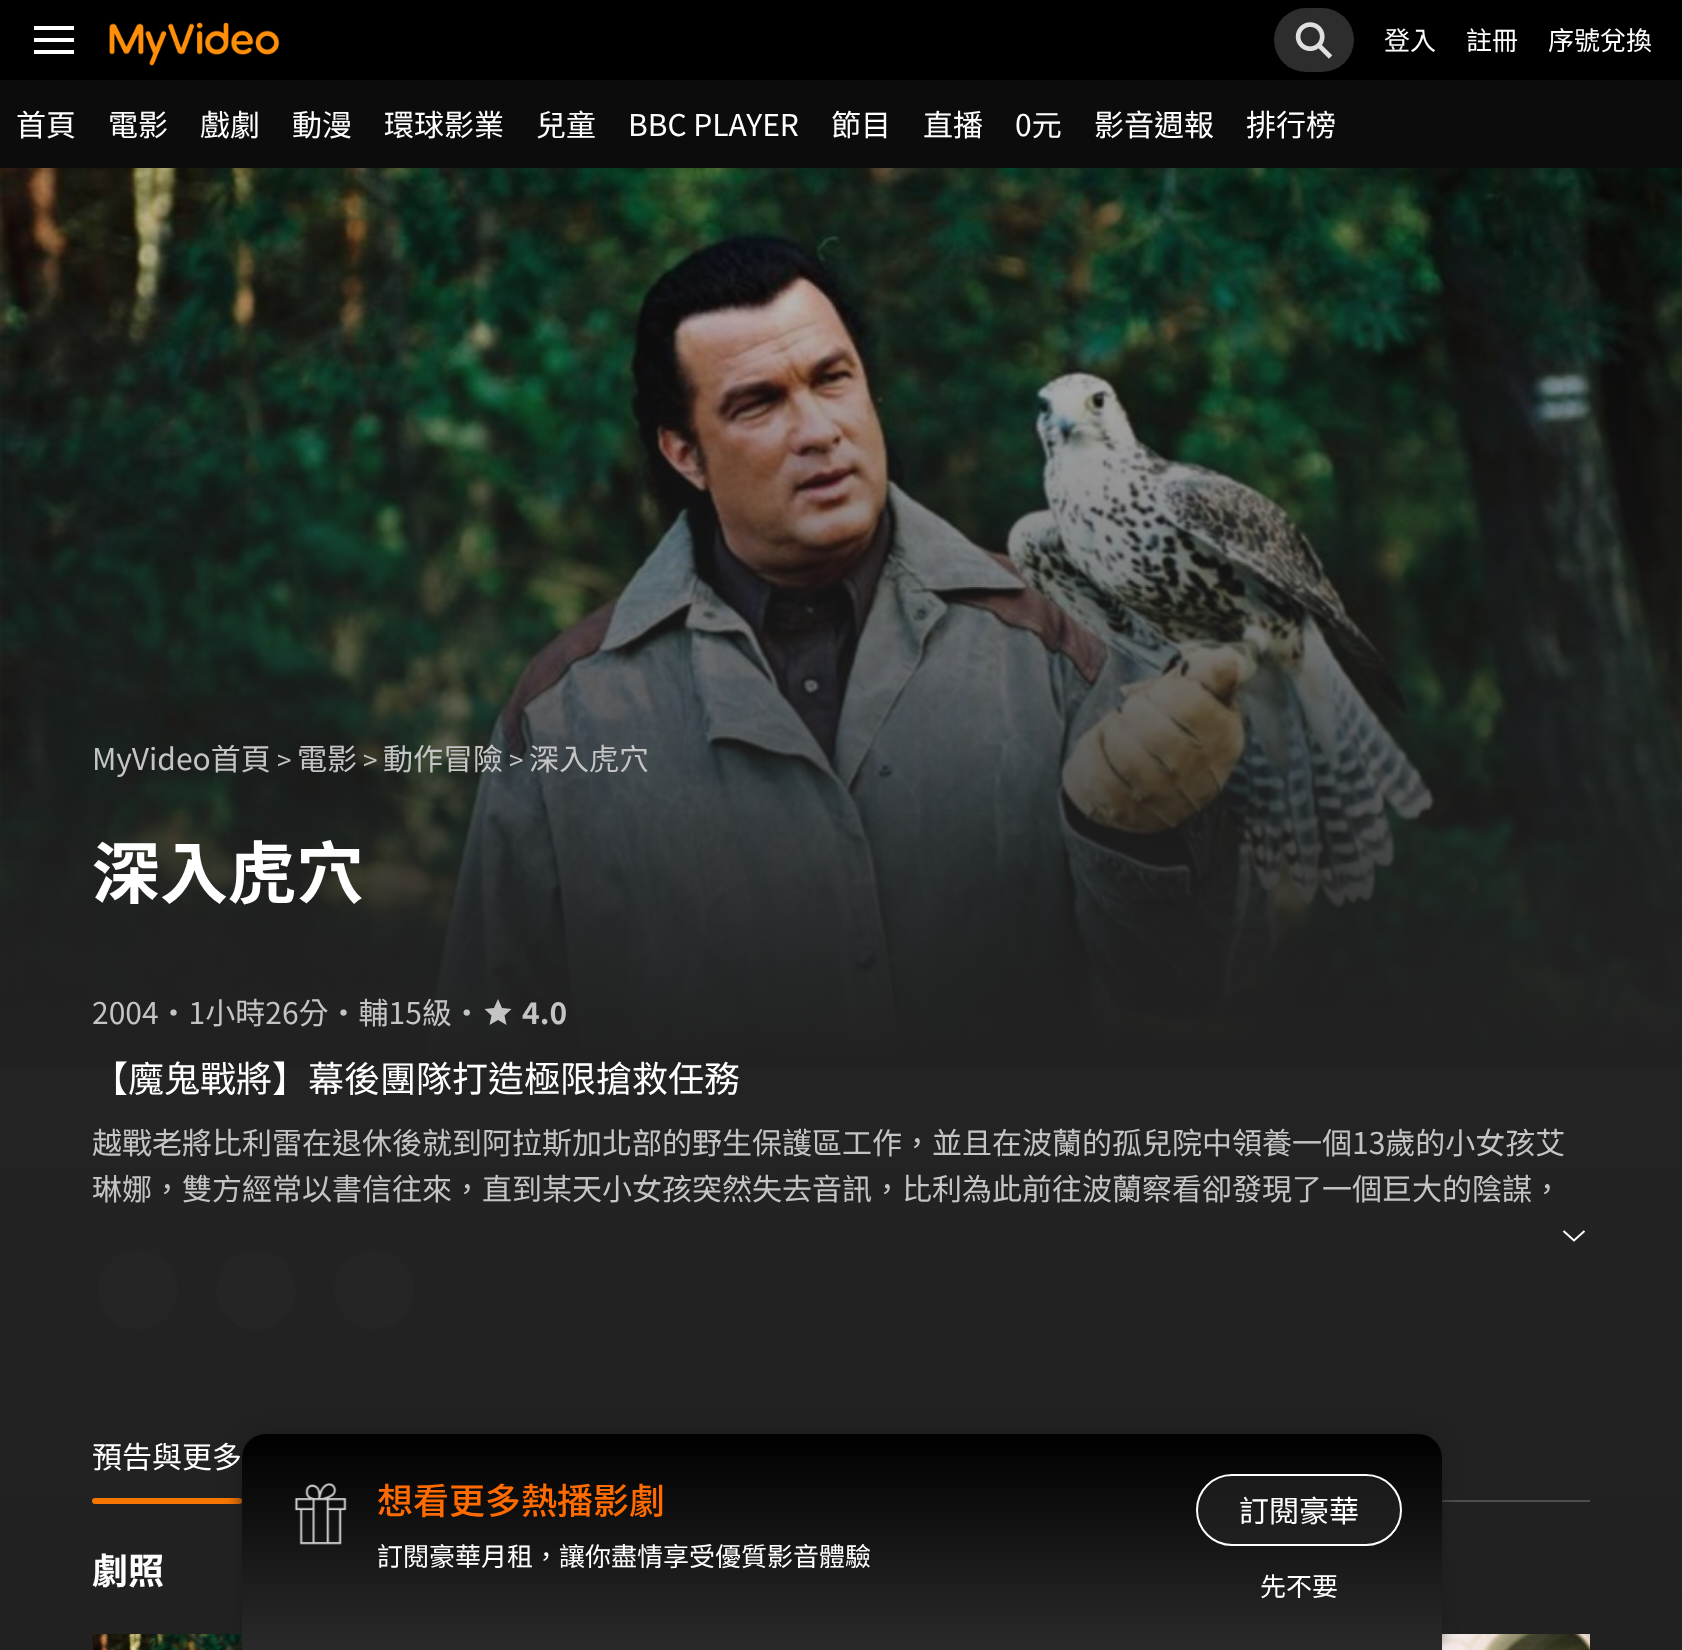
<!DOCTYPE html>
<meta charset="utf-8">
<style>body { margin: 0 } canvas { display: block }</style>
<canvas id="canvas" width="1682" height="1650"></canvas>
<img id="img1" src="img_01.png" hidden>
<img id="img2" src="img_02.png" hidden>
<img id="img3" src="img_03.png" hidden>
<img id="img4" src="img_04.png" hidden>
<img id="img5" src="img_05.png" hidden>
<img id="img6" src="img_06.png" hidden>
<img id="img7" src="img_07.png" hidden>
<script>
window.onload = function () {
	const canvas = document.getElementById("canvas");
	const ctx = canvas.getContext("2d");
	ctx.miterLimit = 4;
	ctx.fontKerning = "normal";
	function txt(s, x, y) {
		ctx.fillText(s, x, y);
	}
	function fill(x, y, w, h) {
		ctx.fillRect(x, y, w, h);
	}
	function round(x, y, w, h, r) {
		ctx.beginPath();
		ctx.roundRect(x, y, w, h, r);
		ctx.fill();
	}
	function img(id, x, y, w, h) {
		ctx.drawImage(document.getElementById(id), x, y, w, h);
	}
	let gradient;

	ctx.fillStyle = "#272727";
	fill(0, 0, 1682, 1650);
	ctx.fillStyle = "#000000";
	fill(0, 0, 1682, 80);
	img("img1", 34, 26, 40, 28);
	img("img2", 109, 22, 171, 44);
	ctx.fillStyle = "#2D2D2D";
	round(1274, 8, 80, 64, 32);
	img("img3", 1295, 22, 38, 37);
	ctx.fillStyle = "#0C0C0C";
	fill(0, 80, 1682, 88);
	img("img4", 0, 168, 1682, 893);
	gradient = ctx.createLinearGradient(837, 168, 837, 1068);
	gradient.addColorStop(0, "rgba(33, 33, 33, 0.2)");
	gradient.addColorStop(1, "#212121");
	ctx.fillStyle = gradient;
	fill(0, 168, 1682, 900);
	gradient = ctx.createLinearGradient(841, 168, 841, 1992);
	gradient.addColorStop(0.34, "rgba(33, 33, 33, 0)");
	gradient.addColorStop(0.45, "rgba(33, 33, 33, 0.45)");
	gradient.addColorStop(0.56, "rgba(33, 33, 33, 0.7)");
	gradient.addColorStop(0.84, "#212121");
	ctx.fillStyle = gradient;
	fill(0, 814, 1682, 836);
	ctx.fillStyle = "#C4C4C4";
	ctx.beginPath();
	ctx.moveTo(498, 1020);
	ctx.lineTo(489.5, 1025);
	ctx.lineTo(491.5, 1015.5);
	ctx.lineTo(484.5, 1009);
	ctx.lineTo(494, 1008);
	ctx.lineTo(498, 999);
	ctx.lineTo(502, 1008);
	ctx.lineTo(511.5, 1009);
	ctx.lineTo(504.5, 1015.5);
	ctx.lineTo(506.5, 1025);
	ctx.closePath();
	ctx.fill();
	ctx.beginPath();
	ctx.moveTo(1584.5, 1231);
	ctx.lineTo(1574, 1240.5);
	ctx.lineTo(1563.5, 1231);
	ctx.strokeStyle = "#FFFFFF";
	ctx.lineWidth = 2;
	ctx.stroke();
	ctx.fillStyle = "#252525";
	ctx.beginPath();
	ctx.arc(138, 1290, 40, 0, Math.PI * 2);
	ctx.fill();
	ctx.beginPath();
	ctx.arc(256, 1290, 40, 0, Math.PI * 2);
	ctx.fill();
	ctx.beginPath();
	ctx.arc(374, 1290, 40, 0, Math.PI * 2);
	ctx.fill();
	ctx.fillStyle = "#4E4E4E";
	fill(92, 1500, 1498, 2);
	ctx.fillStyle = "#F57600";
	round(92, 1498, 150, 6, 3);
	img("img5", 92, 1634, 150, 16);
	img("img6", 1442, 1634, 148, 16);
	ctx.fillStyle = "rgba(27, 27, 27, 0.8)";
	ctx.filter = "blur(8px)";
	ctx.beginPath();
	ctx.roundRect(242, 1432, 1200, 216, 24);
	ctx.fill();
	ctx.filter = "none";
	gradient = ctx.createLinearGradient(842, 1434, 842, 1650);
	gradient.addColorStop(0, "#000000");
	gradient.addColorStop(1, "#2A2A2A");
	ctx.fillStyle = gradient;
	ctx.beginPath();
	ctx.roundRect(242, 1434, 1200, 216, [24, 24, 0, 0]);
	ctx.fill();
	img("img7", 294, 1483, 53, 62);
	ctx.fillStyle = "rgba(38, 38, 38, 0.6)";
	ctx.beginPath();
	ctx.roundRect(1197, 1475, 204, 70, 35);
	ctx.fill();
	ctx.stroke();
	ctx.font = "26px Noto Sans TC";
	ctx.fillStyle = "#FFFFFF";
	txt("登入", 1384, 50);
	txt("註冊", 1466, 50);
	txt("序號兌換", 1548, 50);
	ctx.font = "30px Noto Sans TC";
	txt("首頁", 16, 136);
	txt("電影", 108, 136);
	txt("戲劇", 200, 136);
	txt("動漫", 292, 136);
	txt("環球影業", 384, 136);
	txt("兒童", 536, 136);
	txt("BBC PLAYER", 628, 136);
	txt("節目", 831, 136);
	txt("直播", 923, 136);
	txt("0元", 1015, 136);
	txt("影音週報", 1094, 136);
	txt("排行榜", 1246, 136);
	ctx.fillStyle = "#C4C4C4";
	txt("MyVideo首頁", 92, 770);
	ctx.font = "26px Noto Sans TC";
	txt(">", 277, 770);
	ctx.font = "30px Noto Sans TC";
	txt("電影", 297, 770);
	ctx.font = "26px Noto Sans TC";
	txt(">", 363, 770);
	ctx.font = "30px Noto Sans TC";
	txt("動作冒險", 383, 770);
	ctx.font = "26px Noto Sans TC";
	txt(">", 509, 770);
	ctx.font = "30px Noto Sans TC";
	txt("深入虎穴", 529, 770);
	ctx.font = "bold 68px Noto Sans TC";
	ctx.fillStyle = "#FFFFFF";
	txt("深入虎穴", 92, 898);
	ctx.font = "30px Noto Sans TC";
	ctx.fillStyle = "#C4C4C4";
	txt("2004・1小時26分・輔15級・", 92, 1024);
	ctx.font = "bold 30px Noto Sans TC";
	txt("4.0", 522, 1024);
	ctx.font = "36px Noto Sans TC";
	ctx.fillStyle = "#FFFFFF";
	txt("【魔鬼戰將】幕後團隊打造極限搶救任務", 92, 1092);
	ctx.font = "30px Noto Sans TC";
	ctx.fillStyle = "#C4C4C4";
	txt("越戰老將比利雷在退休後就到阿拉斯加北部的野生保護區工作，並且在波蘭的孤兒院中領養一個13歲的小女孩艾", 92, 1154);
	txt("琳娜，雙方經常以書信往來，直到某天小女孩突然失去音訊，比利為此前往波蘭察看卻發現了一個巨大的陰謀，", 92, 1200);
	ctx.fillStyle = "#FFFFFF";
	txt("預告與更多", 92, 1468);
	ctx.font = "bold 36px Noto Sans TC";
	txt("劇照", 92, 1584);
	ctx.font = "500 36px Noto Sans TC";
	ctx.fillStyle = "#FF6B00";
	txt("想看更多熱播影劇", 377, 1514);
	ctx.font = "26px Noto Sans TC";
	ctx.fillStyle = "#FFFFFF";
	txt("訂閱豪華月租，讓你盡情享受優質影音體驗", 377, 1566);
	ctx.font = "30px Noto Sans TC";
	txt("訂閱豪華", 1239, 1522);
	ctx.font = "26px Noto Sans TC";
	txt("先不要", 1260, 1596);
};
</script>
